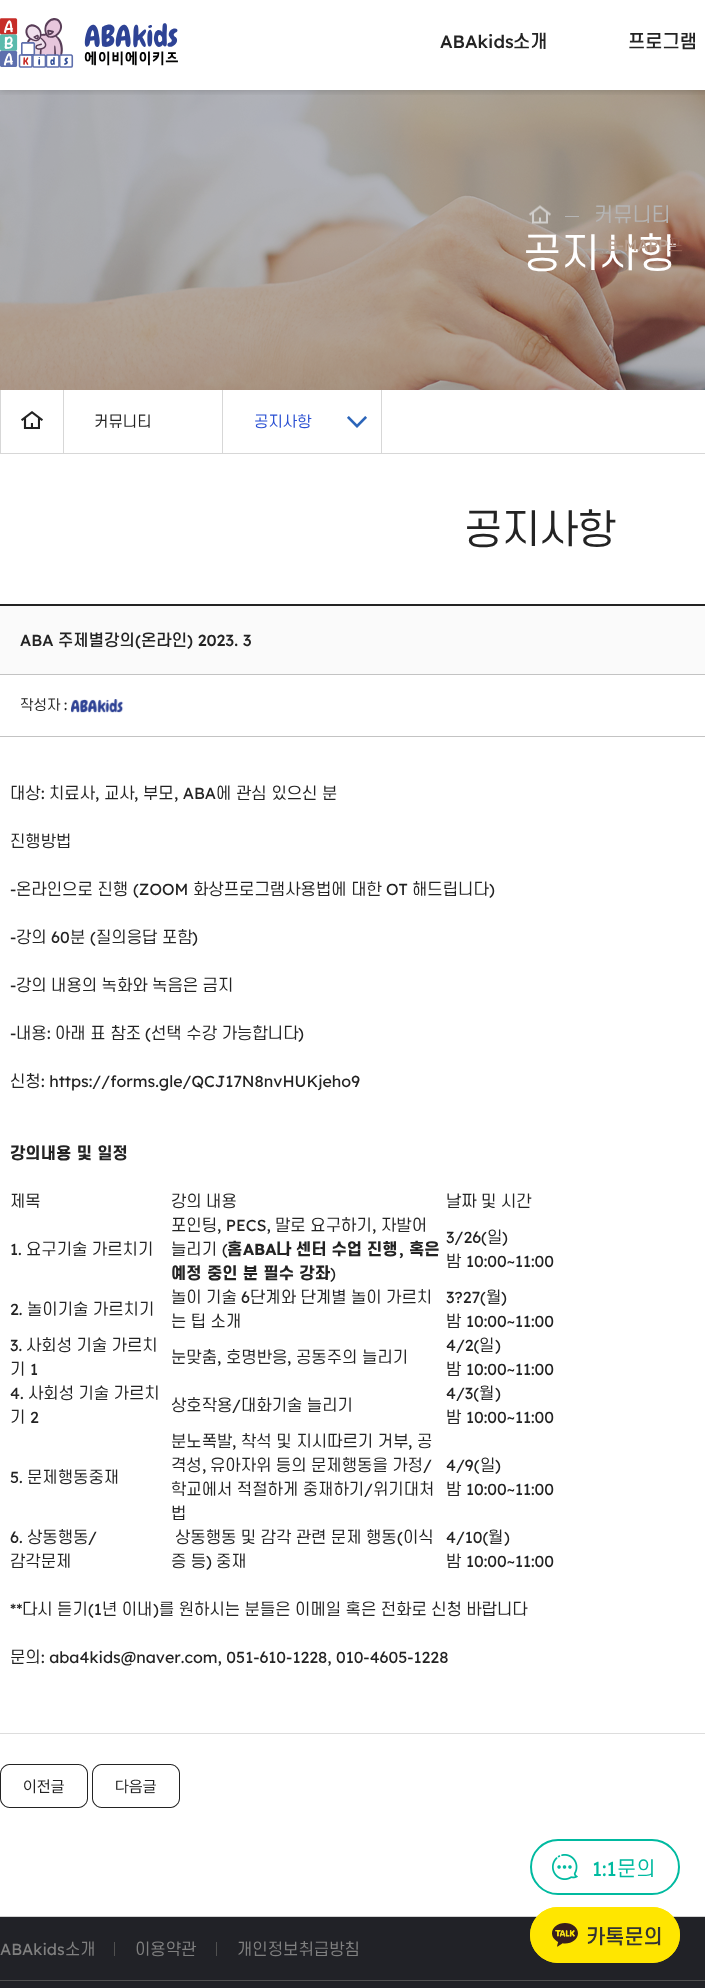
<!DOCTYPE html>
<meta charset="utf-8">
<style>body { margin: 0 } canvas { display: block }</style>
<canvas id="canvas" width="705" height="1988"></canvas>
<img id="img1" src="img_02.png" hidden>
<img id="img2" src="img_01.png" hidden>
<img id="img3" src="img_03.png" hidden>
<img id="img4" src="img_04.png" hidden>
<img id="img5" src="img_05.png" hidden>
<img id="img6" src="img_06.png" hidden>
<img id="img7" src="img_07.png" hidden>
<img id="img8" src="img_08.png" hidden>
<img id="img9" src="img_09.png" hidden>
<img id="img10" src="img_10.png" hidden>
<script>
window.onload = function () {
	const canvas = document.getElementById("canvas");
	const ctx = canvas.getContext("2d");
	ctx.miterLimit = 4;
	ctx.fontKerning = "none";
	function txt(s, x, y) {
		ctx.fillText(s, x, y);
	}
	function fill(x, y, w, h) {
		ctx.fillRect(x, y, w, h);
	}
	function round(x, y, w, h, r) {
		ctx.beginPath();
		ctx.roundRect(x, y, w, h, r);
		ctx.fill();
	}
	function img(id, x, y, w, h) {
		ctx.drawImage(document.getElementById(id), x, y, w, h);
	}

	ctx.fillStyle = "#FFFFFF";
	fill(0, 0, 705, 1988);
	img("img1", 0, 90, 705, 300);
	ctx.save();
	ctx.beginPath();
	ctx.rect(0, 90, 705, 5);
	ctx.clip();
	ctx.fillStyle = "rgba(0, 0, 0, 0.2)";
	ctx.filter = "blur(4px)";
	ctx.beginPath();
	ctx.rect(0, 0, 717, 90);
	ctx.fill();
	ctx.filter = "none";
	ctx.restore();
	img("img2", 0, 18, 178, 50);
	img("img3", 529, 205, 22, 19);
	ctx.fillStyle = "#B5B5B5";
	fill(565, 216, 14, 1);
	ctx.fillStyle = "#D7D7D7";
	fill(0, 453, 705, 1);
	fill(63, 390, 1, 64);
	fill(0, 390, 1, 64);
	img("img4", 21, 411, 22, 18);
	img("img5", 347, 416, 20, 12);
	fill(381, 390, 1, 64);
	fill(222, 390, 1, 64);
	ctx.fillStyle = "#232323";
	fill(0, 604, 705, 2);
	ctx.fillStyle = "#DDDDDD";
	fill(0, 1733, 705, 1);
	ctx.fillStyle = "#FAFAFA";
	fill(0, 606, 705, 68);
	ctx.fillStyle = "#C3C3C3";
	fill(0, 674, 705, 1);
	fill(0, 736, 705, 1);
	img("img6", 71, 699, 53, 14);
	img("img7", 0, 1764, 88, 44);
	img("img8", 92, 1764, 88, 44);
	img("img9", 552, 1854, 26, 26);
	ctx.beginPath();
	ctx.roundRect(531, 1840, 148, 54, 27);
	ctx.strokeStyle = "#00BAA0";
	ctx.lineWidth = 2;
	ctx.stroke();
	ctx.fillStyle = "#212227";
	fill(0, 1917, 705, 71);
	ctx.fillStyle = "#D3D3D3";
	fill(0, 1916, 705, 1);
	ctx.fillStyle = "#FFE600";
	round(530, 1907, 150, 56, 28);
	img("img10", 552, 1923, 26, 24);
	ctx.beginPath();
	ctx.roundRect(531, 1908, 148, 54, 27);
	ctx.strokeStyle = "#FFE600";
	ctx.stroke();
	ctx.fillStyle = "#505050";
	fill(0, 1980, 705, 1);
	fill(114, 1942, 1, 14);
	fill(216, 1942, 1, 14);
	ctx.font = "500 18px Lexend Deca";
	ctx.fillStyle = "#232323";
	txt("ABAkids", 440, 48);
	ctx.font = "500 18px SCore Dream";
	txt("소개", 513, 48);
	txt("프로그램", 628, 48);
	ctx.font = "20px SCore Dream";
	ctx.fillStyle = "#B5B5B5";
	txt("커뮤니티", 594, 222);
	ctx.font = "40px SCore Dream";
	ctx.fillStyle = "#FFFFFF";
	txt("공지사항", 523, 268);
	ctx.letterSpacing = "-0.25px";
	ctx.font = "16px SCore Dream";
	ctx.fillStyle = "#905C4E";
	txt("프", 668, 251);
	ctx.font = "16px Lexend Deca";
	ctx.fillStyle = "#B79F90";
	txt("B-MAPP", 607, 251);
	ctx.letterSpacing = "0px";
	ctx.font = "15px SCore Dream";
	ctx.fillStyle = "#232323";
	txt("커뮤니티", 94, 427);
	ctx.fillStyle = "#284ED2";
	txt("공지사항", 254, 427);
	ctx.letterSpacing = "-0.5px";
	ctx.font = "40px SCore Dream";
	ctx.fillStyle = "#232323";
	txt("공지사항", 464, 544);
	ctx.letterSpacing = "0px";
	ctx.font = "500 16px Lexend Deca";
	txt("ABA", 20, 646);
	ctx.font = "500 16px SCore Dream";
	txt("주제별강의", 58, 646);
	ctx.font = "500 16px Lexend Deca";
	txt("(", 135, 646);
	ctx.font = "500 16px SCore Dream";
	txt("온라인", 141, 646);
	ctx.font = "500 16px Lexend Deca";
	txt(") 2023. 3", 187, 646);
	ctx.font = "14px SCore Dream";
	txt("작성자", 20, 710);
	ctx.font = "14px Lexend Deca";
	txt(":", 64, 710);
	ctx.font = "16px SCore Dream";
	txt("대상", 10, 799);
	ctx.font = "16px Lexend Deca";
	txt(":", 41, 799);
	ctx.font = "16px SCore Dream";
	txt("치료사", 49, 799);
	ctx.font = "16px Lexend Deca";
	txt(",", 95, 799);
	ctx.font = "16px SCore Dream";
	txt("교사", 104, 799);
	ctx.font = "16px Lexend Deca";
	txt(",", 134, 799);
	ctx.font = "16px SCore Dream";
	txt("부모", 143, 799);
	ctx.font = "16px Lexend Deca";
	txt(", ABA", 174, 799);
	ctx.font = "16px SCore Dream";
	txt("에 관심 있으신 분", 216, 799);
	txt("진행방법", 10, 847);
	ctx.font = "16px Lexend Deca";
	txt("-", 10, 895);
	ctx.font = "16px SCore Dream";
	txt("온라인으로 진행", 16, 895);
	ctx.font = "16px Lexend Deca";
	txt("(ZOOM", 133, 895);
	ctx.font = "16px SCore Dream";
	txt("화상프로그램사용법에 대한", 193, 895);
	ctx.font = "16px Lexend Deca";
	txt("OT", 386, 895);
	ctx.font = "16px SCore Dream";
	txt("해드립니다", 412, 895);
	ctx.font = "16px Lexend Deca";
	txt(")", 489, 895);
	txt("-", 10, 943);
	ctx.font = "16px SCore Dream";
	txt("강의", 16, 943);
	ctx.font = "16px Lexend Deca";
	txt("60", 51, 943);
	ctx.font = "16px SCore Dream";
	txt("분", 70, 943);
	ctx.font = "16px Lexend Deca";
	txt("(", 90, 943);
	ctx.font = "16px SCore Dream";
	txt("질의응답 포함", 96, 943);
	ctx.font = "16px Lexend Deca";
	txt(")", 192, 943);
	txt("-", 10, 991);
	ctx.wordSpacing = "-0.25px";
	ctx.font = "16px SCore Dream";
	txt("강의 내용의 녹화와 녹음은 금지", 16, 991);
	ctx.wordSpacing = "0px";
	ctx.font = "16px Lexend Deca";
	txt("-", 10, 1039);
	ctx.font = "16px SCore Dream";
	txt("내용", 16, 1039);
	ctx.font = "16px Lexend Deca";
	txt(":", 47, 1039);
	ctx.font = "16px SCore Dream";
	txt("아래 표 참조", 55, 1039);
	ctx.font = "16px Lexend Deca";
	txt("(", 145, 1039);
	ctx.font = "16px SCore Dream";
	txt("선택 수강 가능합니다", 151, 1039);
	ctx.font = "16px Lexend Deca";
	txt(")", 298, 1039);
	ctx.font = "16px SCore Dream";
	txt("신청", 10, 1087);
	ctx.font = "16px Lexend Deca";
	txt(": https://forms.gle/QCJ17N8nvHUKjeho9", 41, 1087);
	ctx.wordSpacing = "0.5px";
	ctx.font = "800 16px SCore Dream";
	txt("강의내용 및 일정", 10, 1159);
	ctx.wordSpacing = "0px";
	ctx.font = "16px SCore Dream";
	txt("제목", 10, 1207);
	ctx.wordSpacing = "-0.25px";
	txt("강의 내용", 171, 1207);
	txt("날짜 및 시간", 446, 1207);
	ctx.wordSpacing = "0px";
	ctx.font = "16px Lexend Deca";
	txt("1.", 10, 1255);
	ctx.wordSpacing = "-0.25px";
	ctx.font = "16px SCore Dream";
	txt("요구기술 가르치기", 26, 1255);
	ctx.wordSpacing = "0px";
	txt("포인팅", 171, 1231);
	ctx.font = "16px Lexend Deca";
	txt(", PECS,", 217, 1231);
	ctx.font = "16px SCore Dream";
	txt("말로 요구하기", 275, 1231);
	ctx.font = "16px Lexend Deca";
	txt(",", 372, 1231);
	ctx.font = "16px SCore Dream";
	txt("자발어", 381, 1231);
	txt("늘리기", 171, 1255);
	ctx.font = "16px Lexend Deca";
	txt("(", 222, 1255);
	ctx.font = "800 16px SCore Dream";
	txt("홈", 227, 1255);
	ctx.font = "bold 16px Lexend Deca";
	txt("ABA", 243, 1255);
	ctx.font = "800 16px SCore Dream";
	txt("나 센터 수업 진행", 276, 1255);
	ctx.font = "bold 16px Lexend Deca";
	txt(",", 399, 1255);
	ctx.font = "800 16px SCore Dream";
	txt("혹은", 409, 1255);
	ctx.wordSpacing = "0.5px";
	txt("예정 중인 분 필수 강좌", 171, 1279);
	ctx.wordSpacing = "0px";
	ctx.font = "16px Lexend Deca";
	txt(")", 330, 1279);
	txt("3/26(", 446, 1243);
	ctx.font = "16px SCore Dream";
	txt("일", 487, 1243);
	ctx.font = "16px Lexend Deca";
	txt(")", 502, 1243);
	ctx.font = "16px SCore Dream";
	txt("밤", 446, 1267);
	ctx.font = "16px Lexend Deca";
	txt("10:00~11:00", 466, 1267);
	txt("2.", 10, 1315);
	ctx.wordSpacing = "-0.25px";
	ctx.font = "16px SCore Dream";
	txt("놀이기술 가르치기", 27, 1315);
	txt("놀이 기술", 171, 1303);
	ctx.wordSpacing = "0px";
	ctx.font = "16px Lexend Deca";
	txt("6", 241, 1303);
	ctx.wordSpacing = "-0.25px";
	ctx.font = "16px SCore Dream";
	txt("단계와 단계별 놀이 가르치", 250, 1303);
	txt("는 팁 소개", 171, 1327);
	ctx.wordSpacing = "0px";
	ctx.font = "16px Lexend Deca";
	txt("3?27(", 446, 1303);
	ctx.font = "16px SCore Dream";
	txt("월", 486, 1303);
	ctx.font = "16px Lexend Deca";
	txt(")", 501, 1303);
	ctx.font = "16px SCore Dream";
	txt("밤", 446, 1327);
	ctx.font = "16px Lexend Deca";
	txt("10:00~11:00", 466, 1327);
	txt("3.", 10, 1351);
	ctx.wordSpacing = "-0.25px";
	ctx.font = "16px SCore Dream";
	txt("사회성 기술 가르치", 26, 1351);
	ctx.wordSpacing = "0px";
	txt("기", 10, 1375);
	ctx.font = "16px Lexend Deca";
	txt("1", 30, 1375);
	ctx.font = "16px SCore Dream";
	txt("눈맞춤", 171, 1363);
	ctx.font = "16px Lexend Deca";
	txt(",", 217, 1363);
	ctx.font = "16px SCore Dream";
	txt("호명반응", 226, 1363);
	ctx.font = "16px Lexend Deca";
	txt(",", 287, 1363);
	ctx.font = "16px SCore Dream";
	txt("공동주의 늘리기", 296, 1363);
	ctx.font = "16px Lexend Deca";
	txt("4/2(", 446, 1351);
	ctx.font = "16px SCore Dream";
	txt("일", 479, 1351);
	ctx.font = "16px Lexend Deca";
	txt(")", 495, 1351);
	ctx.font = "16px SCore Dream";
	txt("밤", 446, 1375);
	ctx.font = "16px Lexend Deca";
	txt("10:00~11:00", 466, 1375);
	txt("4.", 10, 1399);
	ctx.wordSpacing = "-0.25px";
	ctx.font = "16px SCore Dream";
	txt("사회성 기술 가르치", 28, 1399);
	ctx.wordSpacing = "0px";
	txt("기", 10, 1423);
	ctx.font = "16px Lexend Deca";
	txt("2", 30, 1423);
	ctx.font = "16px SCore Dream";
	txt("상호작용", 171, 1411);
	ctx.font = "16px Lexend Deca";
	txt("/", 232, 1411);
	ctx.wordSpacing = "-0.25px";
	ctx.font = "16px SCore Dream";
	txt("대화기술 늘리기", 241, 1411);
	ctx.wordSpacing = "0px";
	ctx.font = "16px Lexend Deca";
	txt("4/3(", 446, 1399);
	ctx.font = "16px SCore Dream";
	txt("월", 479, 1399);
	ctx.font = "16px Lexend Deca";
	txt(")", 495, 1399);
	ctx.font = "16px SCore Dream";
	txt("밤", 446, 1423);
	ctx.font = "16px Lexend Deca";
	txt("10:00~11:00", 466, 1423);
	txt("5.", 10, 1483);
	ctx.font = "16px SCore Dream";
	txt("문제행동중재", 27, 1483);
	txt("분노폭발", 171, 1447);
	ctx.font = "16px Lexend Deca";
	txt(",", 232, 1447);
	ctx.font = "16px SCore Dream";
	txt("착석 및 지시따르기 거부", 241, 1447);
	ctx.font = "16px Lexend Deca";
	txt(",", 408, 1447);
	ctx.font = "16px SCore Dream";
	txt("공", 417, 1447);
	txt("격성", 171, 1471);
	ctx.font = "16px Lexend Deca";
	txt(",", 202, 1471);
	ctx.wordSpacing = "-0.25px";
	ctx.font = "16px SCore Dream";
	txt("유아자위 등의 문제행동을 가정", 210, 1471);
	ctx.wordSpacing = "0px";
	ctx.font = "16px Lexend Deca";
	txt("/", 423, 1471);
	ctx.wordSpacing = "-0.25px";
	ctx.font = "16px SCore Dream";
	txt("학교에서 적절하게 중재하기", 171, 1495);
	ctx.wordSpacing = "0px";
	ctx.font = "16px Lexend Deca";
	txt("/", 364, 1495);
	ctx.font = "16px SCore Dream";
	txt("위기대처", 373, 1495);
	txt("법", 171, 1519);
	ctx.font = "16px Lexend Deca";
	txt("4/9(", 446, 1471);
	ctx.font = "16px SCore Dream";
	txt("일", 480, 1471);
	ctx.font = "16px Lexend Deca";
	txt(")", 495, 1471);
	ctx.font = "16px SCore Dream";
	txt("밤", 446, 1495);
	ctx.font = "16px Lexend Deca";
	txt("10:00~11:00", 466, 1495);
	txt("6.", 10, 1543);
	ctx.font = "16px SCore Dream";
	txt("상동행동", 27, 1543);
	ctx.font = "16px Lexend Deca";
	txt("/", 88, 1543);
	ctx.font = "16px SCore Dream";
	txt("감각문제", 10, 1567);
	ctx.wordSpacing = "-0.25px";
	txt("상동행동 및 감각 관련 문제 행동", 175, 1543);
	ctx.wordSpacing = "0px";
	ctx.font = "16px Lexend Deca";
	txt("(", 397, 1543);
	ctx.font = "16px SCore Dream";
	txt("이식", 403, 1543);
	ctx.wordSpacing = "-0.25px";
	txt("증 등", 171, 1567);
	ctx.wordSpacing = "0px";
	ctx.font = "16px Lexend Deca";
	txt(")", 206, 1567);
	ctx.font = "16px SCore Dream";
	txt("중재", 216, 1567);
	ctx.font = "16px Lexend Deca";
	txt("4/10(", 446, 1543);
	ctx.font = "16px SCore Dream";
	txt("월", 488, 1543);
	ctx.font = "16px Lexend Deca";
	txt(")", 504, 1543);
	ctx.font = "16px SCore Dream";
	txt("밤", 446, 1567);
	ctx.font = "16px Lexend Deca";
	txt("10:00~11:00", 466, 1567);
	txt("**", 10, 1615);
	ctx.wordSpacing = "-0.25px";
	ctx.font = "16px SCore Dream";
	txt("다시 듣기", 22, 1615);
	ctx.wordSpacing = "0px";
	ctx.font = "16px Lexend Deca";
	txt("(1", 88, 1615);
	ctx.wordSpacing = "-0.25px";
	ctx.font = "16px SCore Dream";
	txt("년 이내", 102, 1615);
	ctx.wordSpacing = "0px";
	ctx.font = "16px Lexend Deca";
	txt(")", 153, 1615);
	ctx.wordSpacing = "-0.25px";
	ctx.font = "16px SCore Dream";
	txt("를 원하시는 분들은 이메일 혹은 전화로 신청 바랍니다", 159, 1615);
	ctx.wordSpacing = "0px";
	txt("문의", 10, 1663);
	ctx.font = "16px Lexend Deca";
	txt(": aba4kids@naver.com, 051-610-1228, 010-4605-1228", 41, 1663);
	ctx.font = "20px Lexend Deca";
	ctx.fillStyle = "#00BAA0";
	txt("1:1", 592, 1876);
	ctx.font = "20px SCore Dream";
	txt("문의", 617, 1876);
	ctx.font = "500 20px SCore Dream";
	ctx.fillStyle = "#333333";
	txt("카톡문의", 586, 1944);
	ctx.font = "16px Lexend Deca";
	ctx.fillStyle = "#808080";
	txt("ABAkids", 0, 1955);
	ctx.font = "16px SCore Dream";
	txt("소개", 65, 1955);
	txt("이용약관", 135, 1955);
	txt("개인정보취급방침", 237, 1955);
};
</script>
